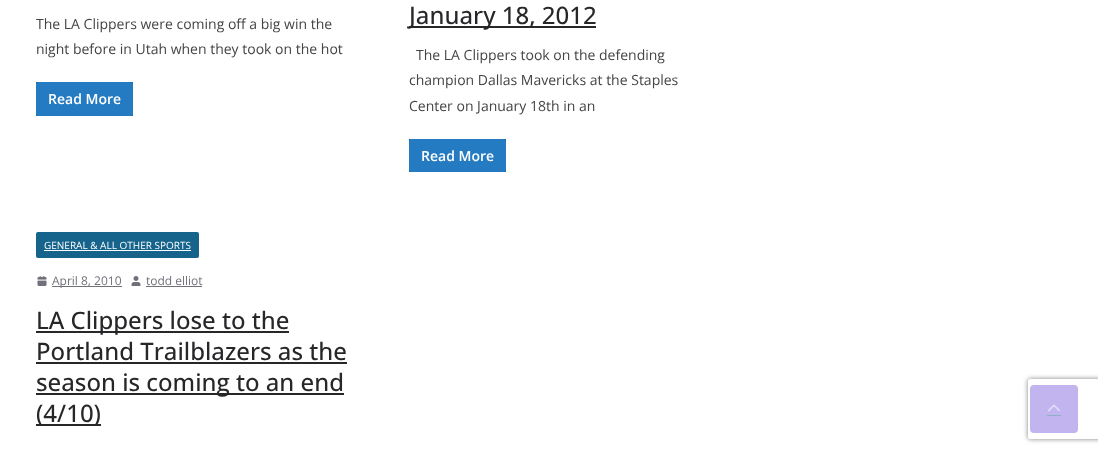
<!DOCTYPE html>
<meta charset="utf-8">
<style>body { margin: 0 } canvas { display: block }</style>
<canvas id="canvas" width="1098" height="453"></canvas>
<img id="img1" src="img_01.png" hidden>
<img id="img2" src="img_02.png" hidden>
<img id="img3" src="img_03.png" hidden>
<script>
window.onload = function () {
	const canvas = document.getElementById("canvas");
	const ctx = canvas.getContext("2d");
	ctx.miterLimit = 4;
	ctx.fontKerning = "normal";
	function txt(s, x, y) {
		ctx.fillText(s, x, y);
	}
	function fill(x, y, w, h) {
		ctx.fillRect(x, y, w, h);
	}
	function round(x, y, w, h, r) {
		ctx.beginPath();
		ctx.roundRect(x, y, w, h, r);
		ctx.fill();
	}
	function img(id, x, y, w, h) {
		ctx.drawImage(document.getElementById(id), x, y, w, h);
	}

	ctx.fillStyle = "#FFFFFF";
	fill(0, 0, 1098, 453);
	ctx.fillStyle = "#16638C";
	fill(36, 82, 97, 34);
	ctx.fillStyle = "#257BC1";
	round(36, 82, 97, 34, 2);
	ctx.fillStyle = "#27272A";
	fill(409, 26, 187, 2);
	ctx.fillStyle = "#16638C";
	fill(409, 139, 97, 33);
	ctx.fillStyle = "#257BC1";
	round(409, 139, 97, 33, 2);
	ctx.fillStyle = "#16638C";
	round(36, 232, 163, 26, 2);
	ctx.fillStyle = "#FFFFFF";
	fill(44, 250, 147, 1);
	img("img1", 37, 276, 10, 10);
	ctx.fillStyle = "#71717A";
	fill(52, 286, 70, 1);
	img("img2", 131, 276, 10, 10);
	fill(146, 286, 56, 1);
	ctx.fillStyle = "#27272A";
	fill(36, 331, 253, 2);
	fill(36, 362, 311, 2);
	fill(36, 393, 308, 2);
	fill(36, 424, 65, 2);
	ctx.save();
	ctx.beginPath();
	ctx.moveTo(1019, 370);
	ctx.lineTo(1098, 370);
	ctx.lineTo(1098, 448);
	ctx.lineTo(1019, 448);
	ctx.closePath();
	ctx.moveTo(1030, 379);
	ctx.lineTo(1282, 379);
	ctx.bezierCurveTo(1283, 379, 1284, 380, 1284, 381);
	ctx.lineTo(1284, 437);
	ctx.bezierCurveTo(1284, 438, 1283, 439, 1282, 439);
	ctx.lineTo(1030, 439);
	ctx.bezierCurveTo(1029, 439, 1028, 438, 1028, 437);
	ctx.lineTo(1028, 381);
	ctx.bezierCurveTo(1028, 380, 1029, 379, 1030, 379);
	ctx.closePath();
	ctx.clip("evenodd");
	ctx.fillStyle = "#808080";
	ctx.filter = "blur(2.5px)";
	ctx.beginPath();
	ctx.roundRect(1028, 379, 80, 60, 2);
	ctx.fill();
	ctx.filter = "none";
	ctx.restore();
	ctx.fillStyle = "#C1B4EF";
	round(1030, 385, 48, 48, 4);
	ctx.fillStyle = "#8BB1C6";
	fill(1047, 415, 14, 1);
	img("img3", 1048, 404, 12, 8);
	ctx.font = "14px Open Sans";
	ctx.fillStyle = "#444444";
	txt("The LA Clippers were coming off a big win the", 36, 29);
	txt("night before in Utah when they took on the hot", 36, 54);
	ctx.font = "600 14px Open Sans";
	ctx.fillStyle = "#FFFFFF";
	txt("Read More", 48, 104);
	ctx.font = "500 24px Open Sans";
	ctx.fillStyle = "#27272A";
	txt("January 18, 2012", 409, 24);
	ctx.font = "14px Open Sans";
	ctx.fillStyle = "#444444";
	txt("The LA Clippers took on the defending", 416, 60);
	txt("champion Dallas Mavericks at the Staples", 409, 85);
	txt("Center on January 18th in an", 409, 111);
	ctx.font = "600 14px Open Sans";
	ctx.fillStyle = "#FFFFFF";
	txt("Read More", 421, 161);
	ctx.font = "10px Open Sans";
	txt("GENERAL & ALL OTHER SPORTS", 44, 249);
	ctx.font = "12px Open Sans";
	ctx.fillStyle = "#71717A";
	txt("April 8, 2010", 52, 285);
	txt("todd elliot", 146, 285);
	ctx.font = "500 24px Open Sans";
	ctx.fillStyle = "#27272A";
	txt("LA Clippers lose to the", 36, 329);
	txt("Portland Trailblazers as the", 36, 360);
	txt("season is coming to an end", 36, 391);
	txt("(4/10)", 36, 422);
};
</script>
